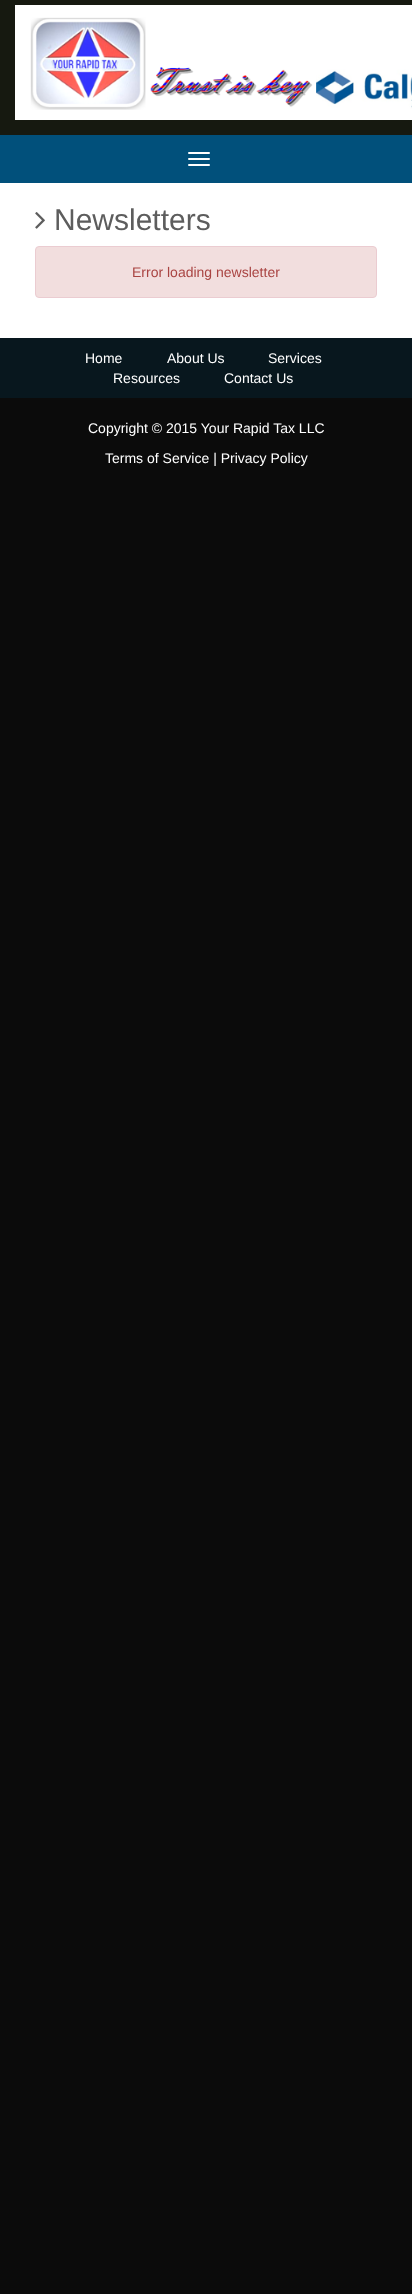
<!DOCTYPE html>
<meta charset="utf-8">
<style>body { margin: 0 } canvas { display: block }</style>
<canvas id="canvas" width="412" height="2294"></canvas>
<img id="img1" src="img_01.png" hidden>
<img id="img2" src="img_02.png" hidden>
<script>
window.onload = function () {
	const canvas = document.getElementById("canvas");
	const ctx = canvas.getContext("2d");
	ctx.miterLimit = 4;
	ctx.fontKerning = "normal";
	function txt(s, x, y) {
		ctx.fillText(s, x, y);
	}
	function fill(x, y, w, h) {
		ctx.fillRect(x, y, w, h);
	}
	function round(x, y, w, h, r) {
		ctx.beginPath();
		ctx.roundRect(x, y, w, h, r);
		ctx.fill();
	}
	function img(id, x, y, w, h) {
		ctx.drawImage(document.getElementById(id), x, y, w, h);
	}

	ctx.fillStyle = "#0B0B0B";
	fill(0, 0, 412, 2294);
	ctx.fillStyle = "#161910";
	fill(0, 0, 412, 135);
	img("img1", 15, 5, 397, 115);
	ctx.fillStyle = "#01507B";
	fill(0, 135, 412, 48);
	ctx.fillStyle = "#FFFFFF";
	round(188, 152, 22, 2, 1);
	round(188, 158, 22, 2, 1);
	round(188, 164, 22, 2, 1);
	fill(0, 183, 412, 155);
	img("img2", 35, 212, 10, 17);
	ctx.fillStyle = "#F2DEDE";
	ctx.beginPath();
	ctx.roundRect(35.5, 246.5, 341, 51, 3.5);
	ctx.fill();
	ctx.strokeStyle = "#EBCCD1";
	ctx.stroke();
	ctx.fillStyle = "#08171E";
	fill(0, 338, 412, 60);
	ctx.font = "30px Liberation Sans";
	ctx.fillStyle = "#5D5D5D";
	txt("Newsletters", 54, 230);
	ctx.font = "14px Liberation Sans";
	ctx.fillStyle = "#A94442";
	txt("Error loading newsletter", 132, 277);
	ctx.fillStyle = "#FFFFFF";
	txt("Home", 85, 363);
	txt("About Us", 167, 363);
	txt("Services", 268, 363);
	txt("Resources", 113, 383);
	txt("Contact Us", 224, 383);
	txt("Copyright © 2015 Your Rapid Tax LLC", 88, 433);
	txt("Terms of Service | Privacy Policy", 105, 463);
};
</script>
